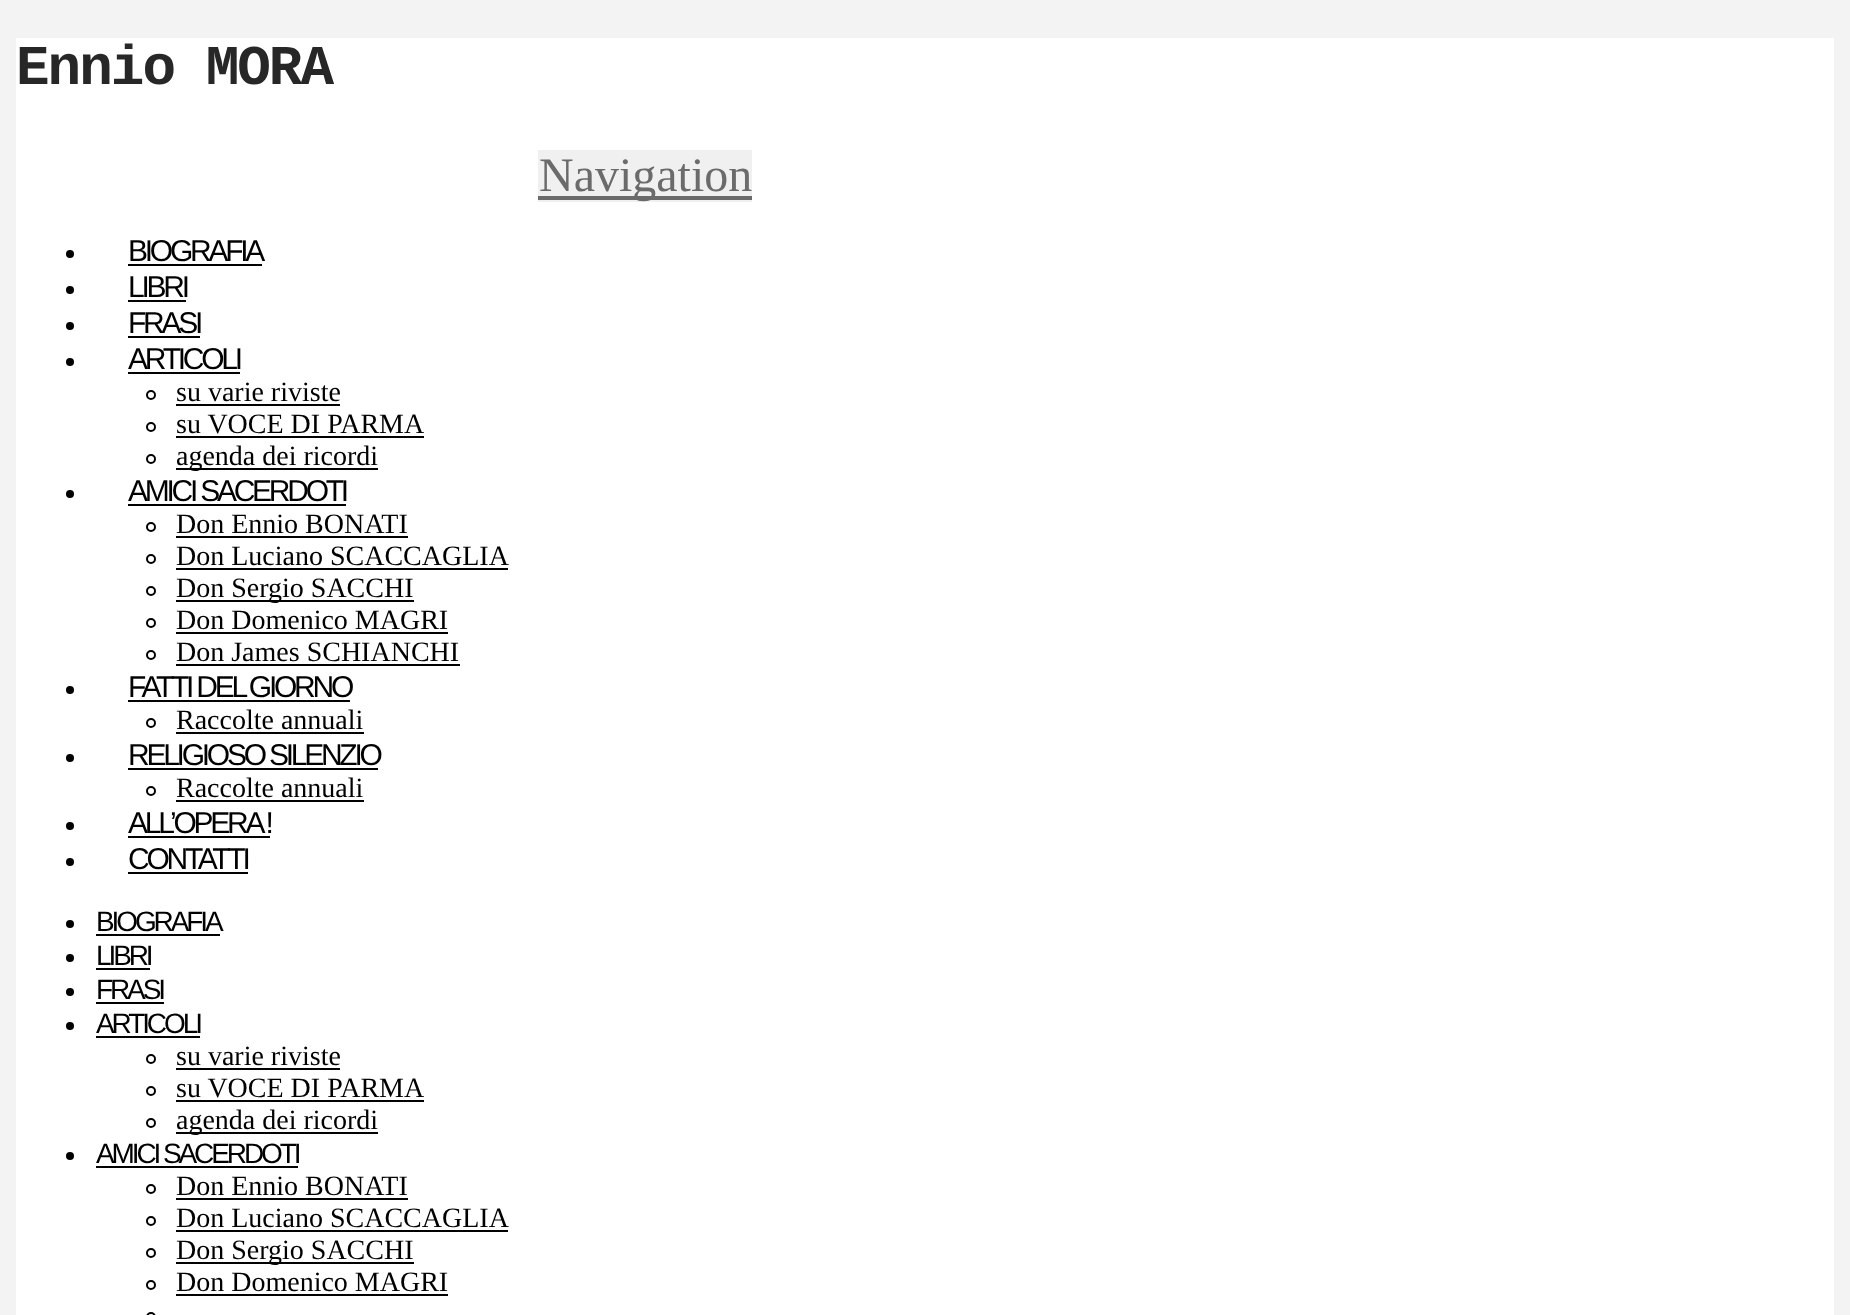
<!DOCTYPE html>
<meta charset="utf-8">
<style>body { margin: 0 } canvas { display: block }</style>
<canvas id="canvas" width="1850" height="1315"></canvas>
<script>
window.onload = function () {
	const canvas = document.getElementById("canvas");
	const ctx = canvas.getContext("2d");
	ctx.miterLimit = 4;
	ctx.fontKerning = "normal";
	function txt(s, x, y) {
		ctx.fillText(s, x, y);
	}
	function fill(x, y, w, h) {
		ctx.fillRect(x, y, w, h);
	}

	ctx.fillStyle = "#F3F3F3";
	fill(0, 0, 1850, 1315);
	ctx.fillStyle = "#FFFFFF";
	fill(16, 38, 1818, 1277);
	ctx.fillStyle = "#F0F0F0";
	fill(538, 150, 214, 52);
	ctx.fillStyle = "#6B6B6B";
	fill(538, 196, 214, 4);
	ctx.fillStyle = "#000000";
	ctx.beginPath();
	ctx.arc(70, 254, 4, 0, Math.PI * 2);
	ctx.fill();
	fill(128, 264, 134, 2);
	ctx.beginPath();
	ctx.arc(70, 290, 4, 0, Math.PI * 2);
	ctx.fill();
	fill(128, 300, 58, 2);
	ctx.beginPath();
	ctx.arc(70, 326, 4, 0, Math.PI * 2);
	ctx.fill();
	fill(128, 336, 72, 2);
	ctx.beginPath();
	ctx.arc(70, 362, 4, 0, Math.PI * 2);
	ctx.fill();
	fill(128, 372, 112, 2);
	ctx.beginPath();
	ctx.arc(151, 395, 4, 0, Math.PI * 2);
	ctx.strokeStyle = "#000000";
	ctx.lineWidth = 2;
	ctx.stroke();
	fill(176, 404, 164, 2);
	ctx.beginPath();
	ctx.arc(151, 427, 4, 0, Math.PI * 2);
	ctx.stroke();
	fill(176, 436, 248, 2);
	ctx.beginPath();
	ctx.arc(151, 459, 4, 0, Math.PI * 2);
	ctx.stroke();
	fill(176, 468, 202, 2);
	ctx.beginPath();
	ctx.arc(70, 494, 4, 0, Math.PI * 2);
	ctx.fill();
	fill(128, 504, 218, 2);
	ctx.beginPath();
	ctx.arc(151, 527, 4, 0, Math.PI * 2);
	ctx.stroke();
	fill(176, 536, 232, 2);
	ctx.beginPath();
	ctx.arc(151, 559, 4, 0, Math.PI * 2);
	ctx.stroke();
	fill(176, 568, 332, 2);
	ctx.beginPath();
	ctx.arc(151, 591, 4, 0, Math.PI * 2);
	ctx.stroke();
	fill(176, 600, 238, 2);
	ctx.beginPath();
	ctx.arc(151, 623, 4, 0, Math.PI * 2);
	ctx.stroke();
	fill(176, 632, 272, 2);
	ctx.beginPath();
	ctx.arc(151, 655, 4, 0, Math.PI * 2);
	ctx.stroke();
	fill(176, 664, 284, 2);
	ctx.beginPath();
	ctx.arc(70, 690, 4, 0, Math.PI * 2);
	ctx.fill();
	fill(128, 700, 222, 2);
	ctx.beginPath();
	ctx.arc(151, 723, 4, 0, Math.PI * 2);
	ctx.stroke();
	fill(176, 732, 188, 2);
	ctx.beginPath();
	ctx.arc(70, 758, 4, 0, Math.PI * 2);
	ctx.fill();
	fill(128, 768, 250, 2);
	ctx.beginPath();
	ctx.arc(151, 791, 4, 0, Math.PI * 2);
	ctx.stroke();
	fill(176, 800, 188, 2);
	ctx.beginPath();
	ctx.arc(70, 826, 4, 0, Math.PI * 2);
	ctx.fill();
	fill(128, 836, 142, 2);
	ctx.beginPath();
	ctx.arc(70, 862, 4, 0, Math.PI * 2);
	ctx.fill();
	fill(128, 872, 120, 2);
	ctx.beginPath();
	ctx.arc(70, 924, 4, 0, Math.PI * 2);
	ctx.fill();
	fill(96, 934, 124, 2);
	ctx.beginPath();
	ctx.arc(70, 958, 4, 0, Math.PI * 2);
	ctx.fill();
	fill(96, 968, 54, 2);
	ctx.beginPath();
	ctx.arc(70, 992, 4, 0, Math.PI * 2);
	ctx.fill();
	fill(96, 1002, 68, 2);
	ctx.beginPath();
	ctx.arc(70, 1026, 4, 0, Math.PI * 2);
	ctx.fill();
	fill(96, 1036, 104, 2);
	ctx.beginPath();
	ctx.arc(151, 1059, 4, 0, Math.PI * 2);
	ctx.stroke();
	fill(176, 1068, 164, 2);
	ctx.beginPath();
	ctx.arc(151, 1091, 4, 0, Math.PI * 2);
	ctx.stroke();
	fill(176, 1100, 248, 2);
	ctx.beginPath();
	ctx.arc(151, 1123, 4, 0, Math.PI * 2);
	ctx.stroke();
	fill(176, 1132, 202, 2);
	ctx.beginPath();
	ctx.arc(70, 1156, 4, 0, Math.PI * 2);
	ctx.fill();
	fill(96, 1166, 202, 2);
	ctx.beginPath();
	ctx.arc(151, 1189, 4, 0, Math.PI * 2);
	ctx.stroke();
	fill(176, 1198, 232, 2);
	ctx.beginPath();
	ctx.arc(151, 1221, 4, 0, Math.PI * 2);
	ctx.stroke();
	fill(176, 1230, 332, 2);
	ctx.beginPath();
	ctx.arc(151, 1253, 4, 0, Math.PI * 2);
	ctx.stroke();
	fill(176, 1262, 238, 2);
	ctx.beginPath();
	ctx.arc(151, 1285, 4, 0, Math.PI * 2);
	ctx.stroke();
	fill(176, 1294, 272, 2);
	ctx.beginPath();
	ctx.arc(151, 1317, 4, 0, Math.PI * 2);
	ctx.stroke();
	ctx.letterSpacing = "-2px";
	ctx.font = "bold 56px Liberation Mono";
	ctx.fillStyle = "#272727";
	txt("Ennio MORA", 16, 84);
	ctx.letterSpacing = "0px";
	ctx.font = "48px Liberation Serif";
	ctx.fillStyle = "#6B6B6B";
	txt("Navigation", 539, 191);
	ctx.letterSpacing = "-3.25px";
	ctx.font = "30px Liberation Sans";
	ctx.fillStyle = "#000000";
	txt("BIOGRAFIA", 128, 261);
	txt("LIBRI", 128, 297);
	txt("FRASI", 128, 333);
	txt("ARTICOLI", 128, 369);
	ctx.letterSpacing = "0px";
	ctx.font = "28px Liberation Serif";
	txt("su varie riviste", 176, 401);
	txt("su VOCE DI PARMA", 176, 433);
	txt("agenda dei ricordi", 176, 465);
	ctx.letterSpacing = "-3.25px";
	ctx.font = "30px Liberation Sans";
	txt("AMICI SACERDOTI", 128, 501);
	ctx.letterSpacing = "0px";
	ctx.font = "28px Liberation Serif";
	txt("Don Ennio BONATI", 176, 533);
	txt("Don Luciano SCACCAGLIA", 176, 565);
	txt("Don Sergio SACCHI", 176, 597);
	txt("Don Domenico MAGRI", 176, 629);
	txt("Don James SCHIANCHI", 176, 661);
	ctx.letterSpacing = "-3.25px";
	ctx.font = "30px Liberation Sans";
	txt("FATTI DEL GIORNO", 128, 697);
	ctx.letterSpacing = "0px";
	ctx.font = "28px Liberation Serif";
	txt("Raccolte annuali", 176, 729);
	ctx.letterSpacing = "-3.25px";
	ctx.font = "30px Liberation Sans";
	txt("RELIGIOSO SILENZIO", 128, 765);
	ctx.letterSpacing = "0px";
	ctx.font = "28px Liberation Serif";
	txt("Raccolte annuali", 176, 797);
	ctx.letterSpacing = "-3.25px";
	ctx.font = "30px Liberation Sans";
	txt("ALL’OPERA !", 128, 833);
	txt("CONTATTI", 128, 869);
	ctx.letterSpacing = "-3.1px";
	ctx.font = "28px Liberation Sans";
	txt("BIOGRAFIA", 96, 931);
	txt("LIBRI", 96, 965);
	txt("FRASI", 96, 999);
	txt("ARTICOLI", 96, 1033);
	ctx.letterSpacing = "0px";
	ctx.font = "28px Liberation Serif";
	txt("su varie riviste", 176, 1065);
	txt("su VOCE DI PARMA", 176, 1097);
	txt("agenda dei ricordi", 176, 1129);
	ctx.letterSpacing = "-3.1px";
	ctx.font = "28px Liberation Sans";
	txt("AMICI SACERDOTI", 96, 1163);
	ctx.letterSpacing = "0px";
	ctx.font = "28px Liberation Serif";
	txt("Don Ennio BONATI", 176, 1195);
	txt("Don Luciano SCACCAGLIA", 176, 1227);
	txt("Don Sergio SACCHI", 176, 1259);
	txt("Don Domenico MAGRI", 176, 1291);
};
</script>
